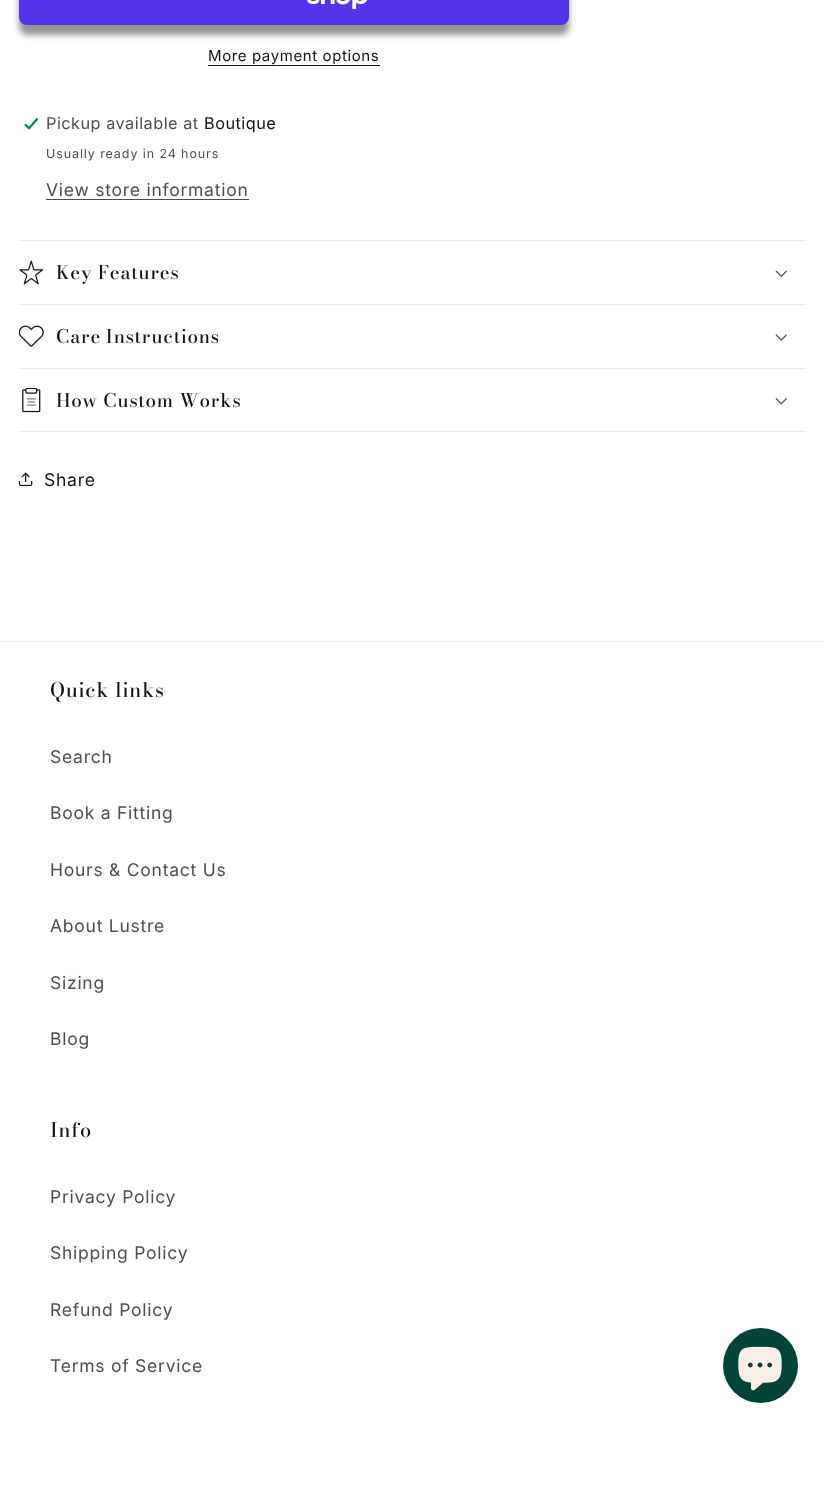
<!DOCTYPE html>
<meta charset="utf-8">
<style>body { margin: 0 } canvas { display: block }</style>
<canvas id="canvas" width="824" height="1508"></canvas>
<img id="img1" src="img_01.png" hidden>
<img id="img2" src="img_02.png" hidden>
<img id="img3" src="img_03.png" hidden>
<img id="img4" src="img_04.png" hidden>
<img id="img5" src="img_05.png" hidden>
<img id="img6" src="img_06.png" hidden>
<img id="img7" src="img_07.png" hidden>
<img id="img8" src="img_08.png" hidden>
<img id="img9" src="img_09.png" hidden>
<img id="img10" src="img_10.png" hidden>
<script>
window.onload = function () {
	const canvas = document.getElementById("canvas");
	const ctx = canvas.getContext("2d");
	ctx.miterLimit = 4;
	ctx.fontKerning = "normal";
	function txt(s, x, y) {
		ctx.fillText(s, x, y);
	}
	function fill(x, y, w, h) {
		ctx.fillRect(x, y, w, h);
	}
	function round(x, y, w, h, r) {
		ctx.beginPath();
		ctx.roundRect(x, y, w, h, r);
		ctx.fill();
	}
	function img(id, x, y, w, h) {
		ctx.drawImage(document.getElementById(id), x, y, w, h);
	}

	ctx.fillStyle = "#FFFFFF";
	fill(0, 0, 824, 1508);
	ctx.fillStyle = "rgba(18, 18, 18, 0.45)";
	ctx.filter = "blur(3px)";
	ctx.beginPath();
	ctx.roundRect(19, -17, 550, 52, 8);
	ctx.fill();
	ctx.filter = "none";
	ctx.fillStyle = "#5433EB";
	round(19, -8, 550, 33, 8);
	img("img1", 307, 0, 60, 9);
	ctx.fillStyle = "#121212";
	fill(208, 65, 172, 1);
	img("img2", 24, 117, 15, 13);
	ctx.fillStyle = "#4D4D4D";
	fill(46, 199, 203, 1);
	ctx.fillStyle = "#ECECEC";
	fill(19, 240, 787, 1);
	fill(19, 304, 787, 1);
	img("img3", 19, 260, 25, 25);
	img("img4", 775, 270, 12, 7);
	fill(19, 368, 787, 1);
	img("img5", 19, 325, 25, 22);
	img("img6", 775, 334, 12, 7);
	fill(19, 431, 787, 1);
	img("img7", 22, 388, 19, 25);
	img("img8", 775, 398, 12, 7);
	img("img9", 18, 472, 15, 14);
	fill(0, 641, 824, 1);
	ctx.fillStyle = "#004437";
	ctx.beginPath();
	ctx.arc(760.5, 1365.5, 37.5, 0, Math.PI * 2);
	ctx.fill();
	img("img10", 738, 1346, 44, 45);
	ctx.letterSpacing = "0.6px";
	ctx.font = "15px Inter";
	ctx.fillStyle = "#121212";
	txt("More payment options", 208, 61);
	ctx.letterSpacing = "0.5px";
	ctx.font = "16.25px Inter";
	ctx.fillStyle = "#4D4D4D";
	txt("Pickup available at", 46, 129);
	ctx.fillStyle = "#121212";
	txt("Boutique", 204, 129);
	ctx.letterSpacing = "0.9px";
	ctx.font = "12.5px Inter";
	ctx.fillStyle = "#4D4D4D";
	txt("Usually ready in 24 hours", 46, 158);
	ctx.letterSpacing = "0.75px";
	ctx.font = "17.5px Inter";
	txt("View store information", 46, 196);
	ctx.font = "500 18.75px Bodoni Moda";
	ctx.fillStyle = "#121212";
	txt("Key Features", 56, 279);
	ctx.wordSpacing = "-1px";
	txt("Care Instructions", 56, 343);
	ctx.wordSpacing = "0px";
	txt("How Custom Works", 56, 407);
	ctx.font = "17.5px Inter";
	txt("Share", 44, 486);
	ctx.font = "500 20px 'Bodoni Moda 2'";
	txt("Quick links", 50, 697);
	ctx.font = "17.5px Inter";
	ctx.fillStyle = "#4D4D4D";
	txt("Search", 50, 763);
	txt("Book a Fitting", 50, 819);
	txt("Hours & Contact Us", 50, 876);
	txt("About Lustre", 50, 932);
	txt("Sizing", 50, 989);
	txt("Blog", 50, 1045);
	ctx.font = "500 20px 'Bodoni Moda 2'";
	ctx.fillStyle = "#121212";
	txt("Info", 50, 1137);
	ctx.font = "17.5px Inter";
	ctx.fillStyle = "#4D4D4D";
	txt("Privacy Policy", 50, 1203);
	txt("Shipping Policy", 50, 1259);
	txt("Refund Policy", 50, 1316);
	txt("Terms of Service", 50, 1372);
};
</script>
